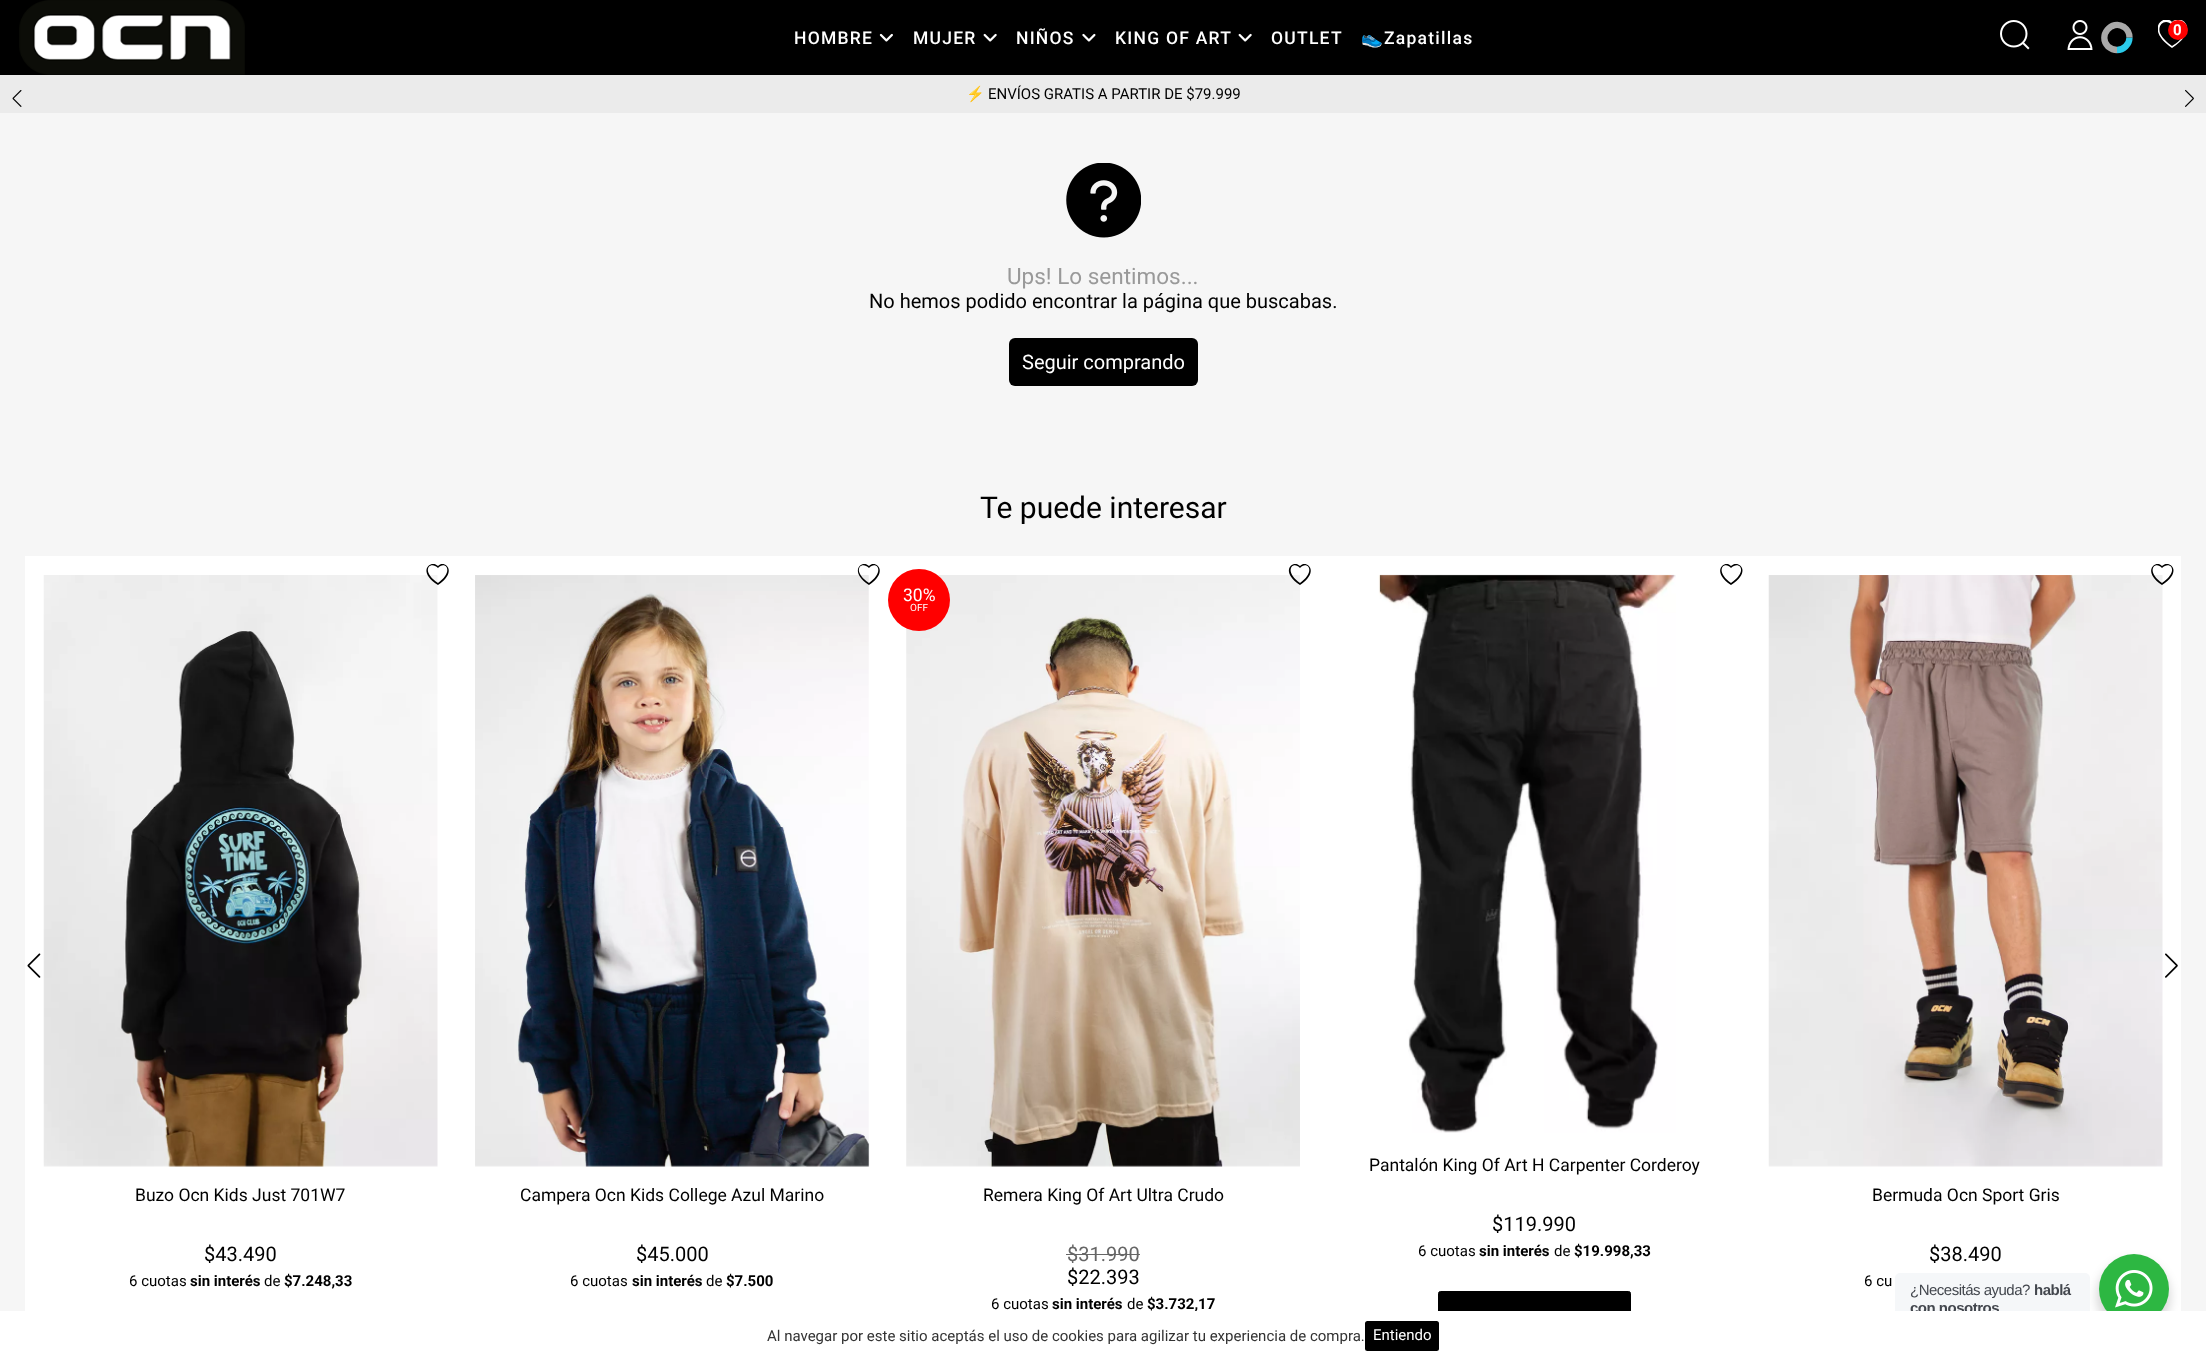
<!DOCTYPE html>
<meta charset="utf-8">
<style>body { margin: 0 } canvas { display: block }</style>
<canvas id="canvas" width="2206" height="1361"></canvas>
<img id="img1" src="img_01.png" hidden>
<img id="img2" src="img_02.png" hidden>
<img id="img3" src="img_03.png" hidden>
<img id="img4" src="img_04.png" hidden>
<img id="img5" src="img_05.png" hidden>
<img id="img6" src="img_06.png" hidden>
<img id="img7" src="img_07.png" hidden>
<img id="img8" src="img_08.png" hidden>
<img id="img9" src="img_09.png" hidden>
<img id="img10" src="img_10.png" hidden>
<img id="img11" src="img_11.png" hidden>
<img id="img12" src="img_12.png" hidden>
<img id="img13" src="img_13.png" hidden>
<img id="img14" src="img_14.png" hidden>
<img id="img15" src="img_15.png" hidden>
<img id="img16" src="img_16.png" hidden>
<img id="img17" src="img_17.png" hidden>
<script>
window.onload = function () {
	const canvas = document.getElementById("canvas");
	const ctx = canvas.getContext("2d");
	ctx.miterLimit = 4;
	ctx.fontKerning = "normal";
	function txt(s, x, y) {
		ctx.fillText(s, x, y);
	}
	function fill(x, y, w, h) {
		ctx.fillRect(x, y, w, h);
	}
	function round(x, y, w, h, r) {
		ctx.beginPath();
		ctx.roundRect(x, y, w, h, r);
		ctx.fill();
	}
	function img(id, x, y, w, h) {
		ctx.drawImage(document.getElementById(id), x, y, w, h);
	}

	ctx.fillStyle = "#F6F6F6";
	fill(0, 0, 2206, 1361);
	ctx.fillStyle = "#000000";
	fill(0, 0, 2206, 75);
	img("img1", 19, 0, 226, 75);
	img("img2", 879, 33, 14, 9);
	img("img3", 983, 33, 14, 9);
	img("img4", 1082, 33, 14, 9);
	img("img3", 1238, 33, 14, 9);
	img("img5", 2000, 20, 30, 30);
	img("img6", 2067, 20, 26, 30);
	ctx.beginPath();
	ctx.moveTo(2129.5, 37.5);
	ctx.bezierCurveTo(2129.5, 44.5, 2123.5, 50, 2117, 50);
	ctx.strokeStyle = "#2ACAEA";
	ctx.lineWidth = 6.3;
	ctx.stroke();
	ctx.beginPath();
	ctx.moveTo(2117, 50);
	ctx.bezierCurveTo(2113.5, 50, 2110.5, 48.5, 2108, 46.5);
	ctx.bezierCurveTo(2097.5, 36, 2111.5, 19, 2124, 27);
	ctx.bezierCurveTo(2127.5, 29.5, 2129.5, 33.5, 2129.5, 37.5);
	ctx.strokeStyle = "#A9A9A9";
	ctx.stroke();
	ctx.save();
	ctx.beginPath();
	ctx.rect(2158, 20, 30, 30);
	ctx.clip();
	ctx.fillStyle = "#FFFFFF";
	ctx.beginPath();
	ctx.moveTo(2172, 25);
	ctx.bezierCurveTo(2166, 18, 2157, 24, 2160, 33);
	ctx.bezierCurveTo(2162, 38, 2168, 43, 2172, 46);
	ctx.bezierCurveTo(2177, 43, 2183, 38, 2185, 33);
	ctx.bezierCurveTo(2188, 24, 2179, 18, 2172, 25);
	ctx.closePath();
	ctx.moveTo(2172, 48);
	ctx.bezierCurveTo(2144, 29, 2164, 13, 2172, 22);
	ctx.bezierCurveTo(2181, 13, 2201, 29, 2172, 48);
	ctx.closePath();
	ctx.fill();
	ctx.restore();
	ctx.fillStyle = "#FF0000";
	ctx.beginPath();
	ctx.arc(2178, 30, 10, 0, Math.PI * 2);
	ctx.fill();
	ctx.fillStyle = "#EBEBEB";
	fill(0, 75, 2206, 38);
	img("img7", 12, 90, 10, 17);
	img("img8", 2185, 89, 9, 18);
	img("img9", 1066, 163, 75, 75);
	ctx.fillStyle = "#000000";
	round(1009, 338, 189, 48, 6);
	ctx.fillStyle = "#FFFFFF";
	fill(25, 556, 2156, 755);
	img("img10", 27, 953, 14, 25);
	img("img11", 43, 575, 395, 592);
	ctx.fillStyle = "#000000";
	ctx.beginPath();
	ctx.moveTo(438, 568);
	ctx.bezierCurveTo(430, 560, 420, 571, 438, 583);
	ctx.bezierCurveTo(455, 571, 445, 560, 438, 568);
	ctx.closePath();
	ctx.moveTo(438, 585);
	ctx.bezierCurveTo(416, 571, 431, 559, 438, 566);
	ctx.bezierCurveTo(444, 559, 459, 571, 438, 585);
	ctx.closePath();
	ctx.fill();
	img("img12", 475, 575, 395, 592);
	ctx.beginPath();
	ctx.moveTo(869, 568);
	ctx.bezierCurveTo(861, 560, 851, 571, 869, 583);
	ctx.bezierCurveTo(886, 571, 876, 560, 869, 568);
	ctx.closePath();
	ctx.moveTo(869, 585);
	ctx.bezierCurveTo(848, 571, 862, 559, 869, 566);
	ctx.bezierCurveTo(875, 559, 890, 571, 869, 585);
	ctx.closePath();
	ctx.fill();
	img("img13", 906, 575, 394, 592);
	ctx.fillStyle = "#FF0000";
	ctx.beginPath();
	ctx.arc(919, 600, 31, 0, Math.PI * 2);
	ctx.fill();
	ctx.fillStyle = "#666666";
	fill(1066, 1254, 74, 1);
	ctx.fillStyle = "#000000";
	ctx.beginPath();
	ctx.moveTo(1300, 568);
	ctx.bezierCurveTo(1293, 560, 1283, 571, 1300, 583);
	ctx.bezierCurveTo(1317, 571, 1307, 560, 1300, 568);
	ctx.closePath();
	ctx.moveTo(1300, 585);
	ctx.bezierCurveTo(1279, 571, 1293, 559, 1300, 566);
	ctx.bezierCurveTo(1306, 559, 1321, 571, 1300, 585);
	ctx.closePath();
	ctx.fill();
	img("img14", 1378, 574, 298, 559);
	ctx.beginPath();
	ctx.moveTo(1731, 568);
	ctx.bezierCurveTo(1724, 560, 1714, 571, 1731, 583);
	ctx.bezierCurveTo(1749, 571, 1739, 560, 1731, 568);
	ctx.closePath();
	ctx.moveTo(1731, 585);
	ctx.bezierCurveTo(1710, 571, 1725, 559, 1731, 566);
	ctx.bezierCurveTo(1738, 559, 1753, 571, 1731, 585);
	ctx.closePath();
	ctx.fill();
	ctx.beginPath();
	ctx.roundRect(1438.5, 1291.5, 192, 37, 2);
	ctx.fill();
	ctx.strokeStyle = "#000000";
	ctx.lineWidth = 1;
	ctx.stroke();
	img("img15", 1768, 575, 395, 592);
	ctx.beginPath();
	ctx.moveTo(2162, 568);
	ctx.bezierCurveTo(2155, 560, 2145, 571, 2162, 583);
	ctx.bezierCurveTo(2180, 571, 2170, 560, 2162, 568);
	ctx.closePath();
	ctx.moveTo(2162, 585);
	ctx.bezierCurveTo(2141, 571, 2156, 559, 2162, 566);
	ctx.bezierCurveTo(2169, 559, 2184, 571, 2162, 585);
	ctx.closePath();
	ctx.fill();
	img("img16", 2165, 953, 13, 25);
	ctx.fillStyle = "rgba(0, 0, 0, 0.14)";
	ctx.filter = "blur(5px)";
	ctx.beginPath();
	ctx.roundRect(2096, 1259, 75, 75, 37.5);
	ctx.fill();
	ctx.filter = "none";
	ctx.fillStyle = "#F5F7F9";
	round(1895, 1273, 195, 52, 5);
	ctx.fillStyle = "#2DB742";
	ctx.beginPath();
	ctx.arc(2134, 1289, 35, 0, Math.PI * 2);
	ctx.fill();
	img("img17", 2115, 1270, 38, 38);
	ctx.letterSpacing = "1.25px";
	ctx.font = "500 17.5px Roboto";
	ctx.fillStyle = "#FFFFFF";
	txt("HOMBRE", 794, 44);
	txt("MUJER", 913, 44);
	txt("NIÑOS", 1016, 44);
	txt("KING OF ART", 1115, 44);
	txt("OUTLET", 1271, 44);
	ctx.font = "17.5px Noto Color Emoji";
	txt("👟", 1361, 44);
	ctx.font = "500 17.5px Roboto";
	txt("Zapatillas", 1384, 44);
	ctx.letterSpacing = "0px";
	ctx.font = "bold 15px Roboto";
	txt("0", 2173, 35);
	ctx.font = "15px Noto Color Emoji";
	ctx.fillStyle = "#000000";
	txt("⚡", 966, 99);
	ctx.font = "15px Roboto";
	txt("ENVÍOS GRATIS A PARTIR DE $79.999", 988, 99);
	ctx.font = "22.5px Roboto";
	ctx.fillStyle = "#999999";
	txt("Ups! Lo sentimos...", 1007, 284);
	ctx.font = "20px Roboto";
	ctx.fillStyle = "#000000";
	txt("No hemos podido encontrar la página que buscabas.", 869, 308);
	ctx.fillStyle = "#FFFFFF";
	txt("Seguir comprando", 1022, 369);
	ctx.font = "30px Roboto";
	ctx.fillStyle = "#000000";
	txt("Te puede interesar", 980, 518);
	ctx.font = "17.5px Roboto";
	txt("Buzo Ocn Kids Just 701W7", 135, 1201);
	ctx.font = "20px Roboto";
	txt("$43.490", 204, 1261);
	ctx.font = "15px Roboto";
	txt("6 cuotas", 129, 1286);
	ctx.font = "bold 15px Roboto";
	txt("sin interés", 190, 1286);
	ctx.font = "15px Roboto";
	txt("de", 264, 1286);
	ctx.font = "bold 15px Roboto";
	txt("$7.248,33", 284, 1286);
	ctx.font = "17.5px Roboto";
	txt("Campera Ocn Kids College Azul Marino", 520, 1201);
	ctx.font = "20px Roboto";
	txt("$45.000", 636, 1261);
	ctx.font = "15px Roboto";
	txt("6 cuotas", 570, 1286);
	ctx.font = "bold 15px Roboto";
	txt("sin interés", 632, 1286);
	ctx.font = "15px Roboto";
	txt("de", 706, 1286);
	ctx.font = "bold 15px Roboto";
	txt("$7.500", 726, 1286);
	ctx.font = "17.5px Roboto";
	ctx.fillStyle = "#FFFFFF";
	txt("30%", 903, 601);
	ctx.font = "10px Roboto";
	txt("OFF", 910, 611);
	ctx.font = "20px Roboto";
	ctx.fillStyle = "#666666";
	txt("$31.990", 1067, 1261);
	ctx.fillStyle = "#000000";
	txt("$22.393", 1067, 1284);
	ctx.font = "15px Roboto";
	txt("6 cuotas", 991, 1309);
	ctx.font = "bold 15px Roboto";
	txt("sin interés", 1052, 1309);
	ctx.font = "15px Roboto";
	txt("de", 1127, 1309);
	ctx.font = "bold 15px Roboto";
	txt("$3.732,17", 1147, 1309);
	ctx.font = "17.5px Roboto";
	txt("Remera King Of Art Ultra Crudo", 983, 1201);
	txt("Pantalón King Of Art H Carpenter Corderoy", 1369, 1171);
	ctx.font = "20px Roboto";
	txt("$119.990", 1492, 1231);
	ctx.font = "15px Roboto";
	txt("6 cuotas", 1418, 1256);
	ctx.font = "bold 15px Roboto";
	txt("sin interés", 1479, 1256);
	ctx.font = "15px Roboto";
	txt("de", 1554, 1256);
	ctx.font = "bold 15px Roboto";
	txt("$19.998,33", 1574, 1256);
	ctx.font = "17.5px Roboto";
	txt("Bermuda Ocn Sport Gris", 1872, 1201);
	ctx.font = "20px Roboto";
	txt("$38.490", 1929, 1261);
	ctx.font = "15px Roboto";
	txt("6 cu", 1864, 1286);
	ctx.letterSpacing = "-0.5px";
	ctx.font = "15px Liberation Sans";
	ctx.fillStyle = "#43474E";
	txt("¿Necesitás ayuda?", 1910, 1295);
	ctx.font = "bold 15px Liberation Sans";
	txt("hablá", 2034, 1295);
	txt("con nosotros", 1910, 1313);
	ctx.fillStyle = "#FFFFFF";
	fill(0, 1311, 2206, 50);
	ctx.letterSpacing = "0px";
	ctx.font = "15px Roboto";
	ctx.fillStyle = "#333333";
	txt("Al navegar por este sitio aceptás el uso de cookies para agilizar tu experiencia de compra.", 767, 1341);
	ctx.fillStyle = "#000000";
	round(1365, 1321, 74, 30, 2.5);
	ctx.fillStyle = "#FFFFFF";
	txt("Entiendo", 1373, 1340);
};
</script>
